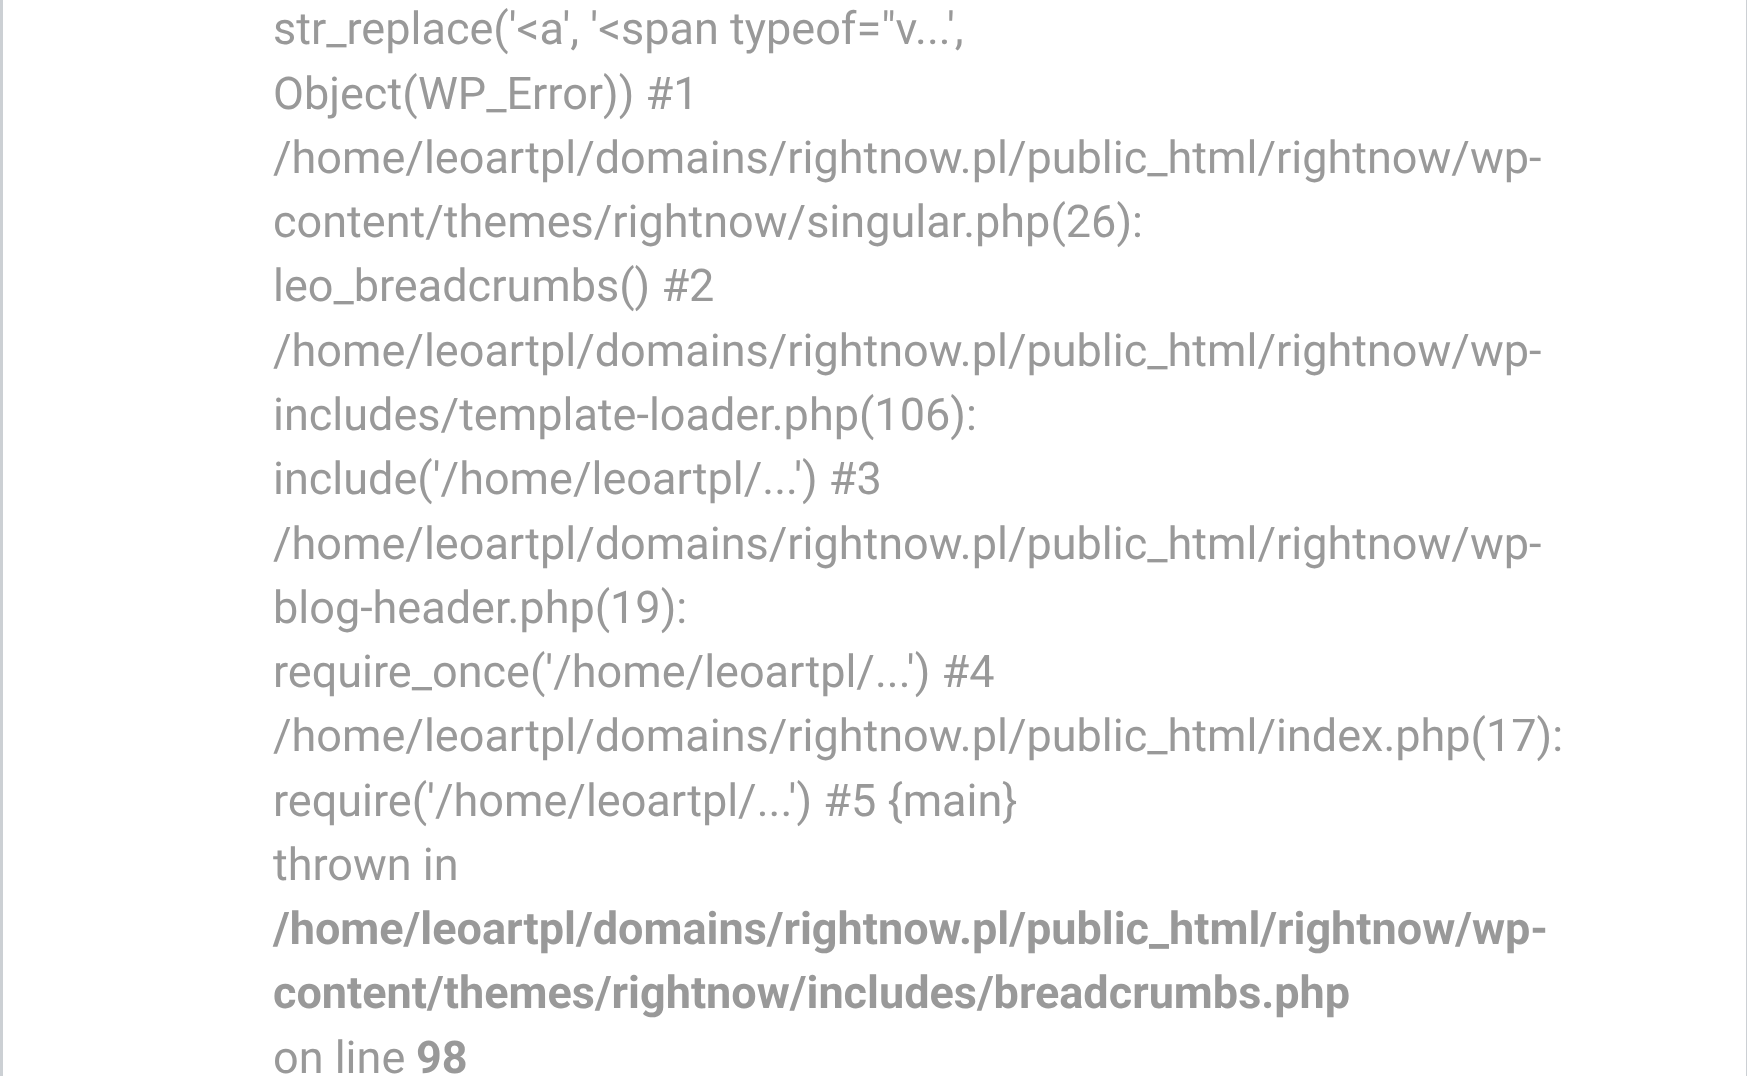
<!DOCTYPE html>
<meta charset="utf-8">
<style>body { margin: 0 } canvas { display: block }</style>
<canvas id="canvas" width="1747" height="1076"></canvas>
<script>
window.onload = function () {
	const canvas = document.getElementById("canvas");
	const ctx = canvas.getContext("2d");
	ctx.miterLimit = 4;
	ctx.fontKerning = "normal";
	function txt(s, x, y) {
		ctx.fillText(s, x, y);
	}
	function fill(x, y, w, h) {
		ctx.fillRect(x, y, w, h);
	}

	ctx.fillStyle = "#FFFFFF";
	fill(0, 0, 1747, 1076);
	ctx.strokeStyle = "#CCD0D4";
	ctx.lineWidth = 3;
	ctx.strokeRect(1.5, -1.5, 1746, 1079);
	ctx.font = "45px Roboto";
	ctx.fillStyle = "#999999";
	txt("str_replace('<a', '<span typeof=\"v...',", 273, 44);
	txt("Object(WP_Error)) #1", 273, 109);
	txt("/home/leoartpl/domains/rightnow.pl/public_html/rightnow/wp-", 273, 173);
	txt("content/themes/rightnow/singular.php(26):", 273, 237);
	txt("leo_breadcrumbs() #2", 273, 301);
	txt("/home/leoartpl/domains/rightnow.pl/public_html/rightnow/wp-", 273, 366);
	txt("includes/template-loader.php(106):", 273, 430);
	txt("include('/home/leoartpl/...') #3", 273, 494);
	txt("/home/leoartpl/domains/rightnow.pl/public_html/rightnow/wp-", 273, 559);
	txt("blog-header.php(19):", 273, 623);
	txt("require_once('/home/leoartpl/...') #4", 273, 687);
	txt("/home/leoartpl/domains/rightnow.pl/public_html/index.php(17):", 273, 751);
	txt("require('/home/leoartpl/...') #5 {main}", 273, 816);
	txt("thrown in", 273, 880);
	ctx.font = "bold 45px Roboto";
	txt("/home/leoartpl/domains/rightnow.pl/public_html/rightnow/wp-", 273, 944);
	txt("content/themes/rightnow/includes/breadcrumbs.php", 273, 1008);
	ctx.font = "45px Roboto";
	txt("on line", 273, 1073);
	ctx.font = "bold 45px Roboto";
	txt("98", 416, 1073);
};
</script>
